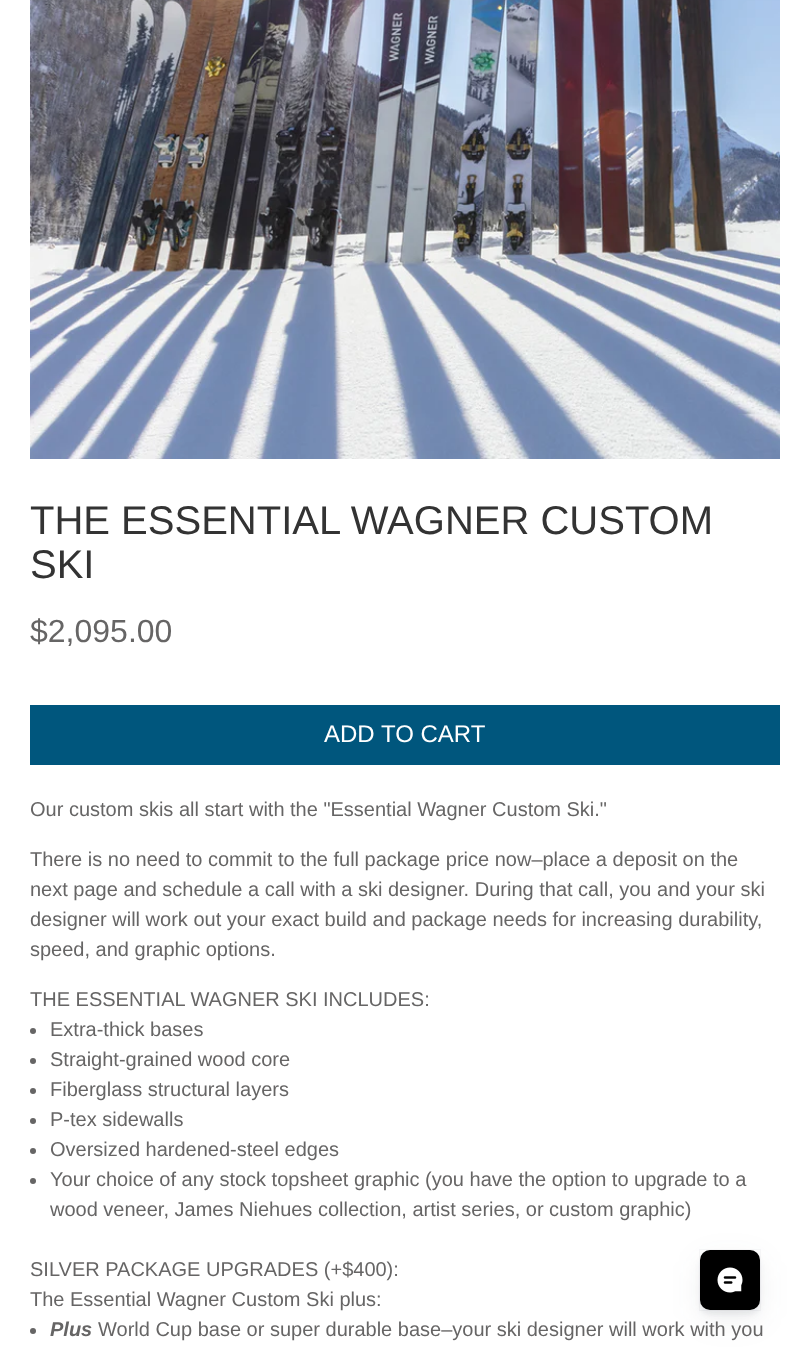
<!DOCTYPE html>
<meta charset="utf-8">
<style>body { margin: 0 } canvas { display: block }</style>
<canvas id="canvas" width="809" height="1360"></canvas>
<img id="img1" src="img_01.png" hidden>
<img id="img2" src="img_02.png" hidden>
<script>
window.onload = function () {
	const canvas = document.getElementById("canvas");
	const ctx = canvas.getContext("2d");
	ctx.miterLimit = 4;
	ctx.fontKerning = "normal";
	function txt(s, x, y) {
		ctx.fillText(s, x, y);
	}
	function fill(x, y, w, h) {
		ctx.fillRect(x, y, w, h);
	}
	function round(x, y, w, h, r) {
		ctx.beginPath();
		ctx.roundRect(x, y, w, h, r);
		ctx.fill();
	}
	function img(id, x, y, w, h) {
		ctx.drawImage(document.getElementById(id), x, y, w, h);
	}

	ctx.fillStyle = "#FFFFFF";
	fill(0, 0, 809, 1360);
	img("img1", 30, 0, 750, 459);
	ctx.fillStyle = "#00567D";
	fill(30, 705, 750, 60);
	ctx.fillStyle = "#666565";
	ctx.beginPath();
	ctx.arc(33, 1031, 3, 0, Math.PI * 2);
	ctx.fill();
	ctx.beginPath();
	ctx.arc(33, 1061, 3, 0, Math.PI * 2);
	ctx.fill();
	ctx.beginPath();
	ctx.arc(33, 1091, 3, 0, Math.PI * 2);
	ctx.fill();
	ctx.beginPath();
	ctx.arc(33, 1121, 3, 0, Math.PI * 2);
	ctx.fill();
	ctx.beginPath();
	ctx.arc(33, 1151, 3, 0, Math.PI * 2);
	ctx.fill();
	ctx.beginPath();
	ctx.arc(33, 1181, 3, 0, Math.PI * 2);
	ctx.fill();
	ctx.beginPath();
	ctx.arc(33, 1331, 3, 0, Math.PI * 2);
	ctx.fill();
	ctx.fillStyle = "rgba(55, 63, 71, 0.08)";
	ctx.filter = "blur(15px)";
	ctx.beginPath();
	ctx.roundRect(700, 1260, 60, 60, 10);
	ctx.fill();
	ctx.filter = "none";
	ctx.filter = "blur(2.5px)";
	ctx.beginPath();
	ctx.roundRect(700, 1255, 60, 60, 10);
	ctx.fill();
	ctx.filter = "none";
	ctx.strokeStyle = "rgba(55, 63, 71, 0.04)";
	ctx.strokeRect(699.5, 1249.5, 61, 61);
	ctx.fillStyle = "#000000";
	round(700, 1250, 60, 60, 10);
	img("img2", 717, 1267, 26, 26);
	ctx.font = "40px Liberation Sans";
	ctx.fillStyle = "#333333";
	txt("THE ESSENTIAL WAGNER CUSTOM", 30, 534);
	txt("SKI", 30, 578);
	ctx.font = "32px Liberation Sans";
	ctx.fillStyle = "#666565";
	txt("$2,095.00", 30, 642);
	ctx.font = "24px Liberation Sans";
	ctx.fillStyle = "#FFFFFF";
	txt("ADD TO CART", 324, 742);
	ctx.font = "20px Liberation Sans";
	ctx.fillStyle = "#666565";
	txt("Our custom skis all start with the \"Essential Wagner Custom Ski.\"", 30, 816);
	txt("There is no need to commit to the full package price now–place a deposit on the", 30, 866);
	txt("next page and schedule a call with a ski designer. During that call, you and your ski", 30, 896);
	txt("designer will work out your exact build and package needs for increasing durability,", 30, 926);
	txt("speed, and graphic options.", 30, 956);
	txt("THE ESSENTIAL WAGNER SKI INCLUDES:", 30, 1006);
	txt("Extra-thick bases", 50, 1036);
	txt("Straight-grained wood core", 50, 1066);
	txt("Fiberglass structural layers", 50, 1096);
	txt("P-tex sidewalls", 50, 1126);
	txt("Oversized hardened-steel edges", 50, 1156);
	txt("Your choice of any stock topsheet graphic (you have the option to upgrade to a", 50, 1186);
	txt("wood veneer, James Niehues collection, artist series, or custom graphic)", 50, 1216);
	txt("SILVER PACKAGE UPGRADES (+$400):", 30, 1276);
	txt("The Essential Wagner Custom Ski plus:", 30, 1306);
	ctx.font = "italic bold 20px Liberation Sans";
	txt("Plus", 50, 1336);
	ctx.font = "20px Liberation Sans";
	txt("World Cup base or super durable base–your ski designer will work with you", 98, 1336);
};
</script>
